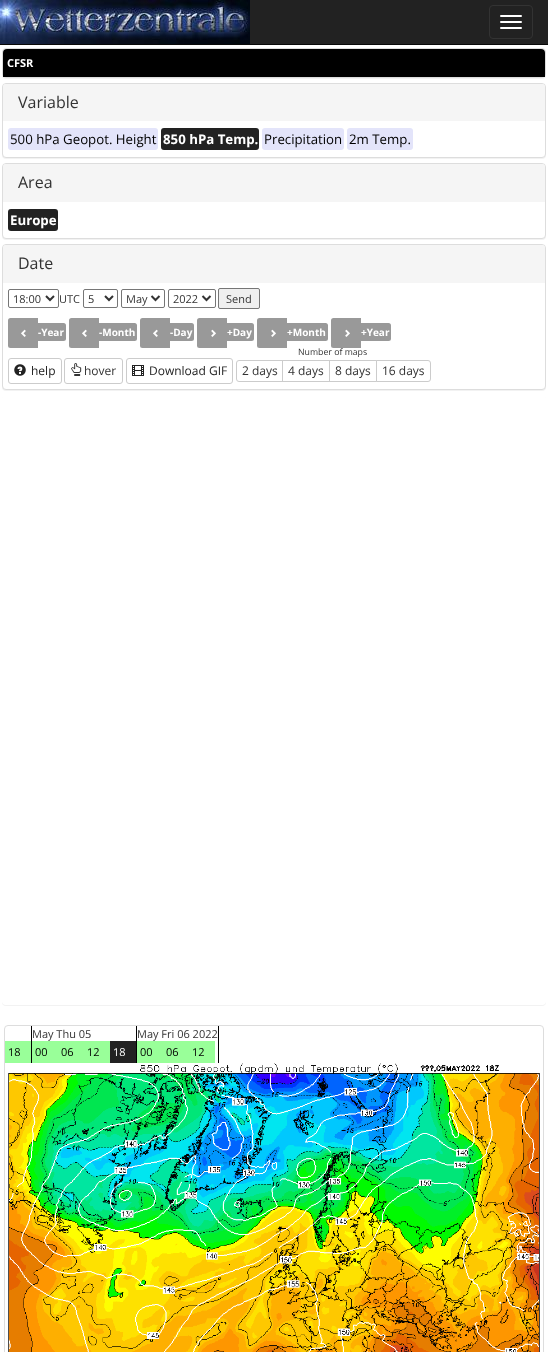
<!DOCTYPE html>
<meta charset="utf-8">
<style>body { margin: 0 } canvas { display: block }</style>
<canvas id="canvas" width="548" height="1352"></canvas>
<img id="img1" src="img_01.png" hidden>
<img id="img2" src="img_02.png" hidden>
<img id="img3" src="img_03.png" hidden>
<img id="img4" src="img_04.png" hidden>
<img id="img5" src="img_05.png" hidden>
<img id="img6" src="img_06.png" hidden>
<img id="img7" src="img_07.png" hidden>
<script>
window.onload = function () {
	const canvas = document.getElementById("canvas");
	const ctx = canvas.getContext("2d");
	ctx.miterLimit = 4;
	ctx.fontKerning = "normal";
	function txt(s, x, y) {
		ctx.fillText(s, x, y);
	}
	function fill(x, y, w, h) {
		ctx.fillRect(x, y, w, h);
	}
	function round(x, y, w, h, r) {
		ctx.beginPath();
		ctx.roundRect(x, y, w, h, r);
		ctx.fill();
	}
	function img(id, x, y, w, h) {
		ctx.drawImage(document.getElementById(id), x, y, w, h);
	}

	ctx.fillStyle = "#FFFFFF";
	fill(0, 0, 548, 1352);
	ctx.fillStyle = "#222222";
	fill(250, 0, 298, 44);
	ctx.fillStyle = "#080808";
	fill(0, 44, 548, 1);
	img("img1", 0, 0, 250, 44);
	ctx.beginPath();
	ctx.roundRect(489.5, 5.5, 43, 33, 3.5);
	ctx.strokeStyle = "#333333";
	ctx.stroke();
	ctx.fillStyle = "#FFFFFF";
	round(500, 15, 22, 2, 1);
	round(500, 21, 22, 2, 1);
	round(500, 27, 22, 2, 1);
	ctx.fillStyle = "rgba(0, 0, 0, 0.05)";
	ctx.filter = "blur(0.5px)";
	ctx.beginPath();
	ctx.roundRect(2, 49, 544, 30, 4);
	ctx.fill();
	ctx.filter = "none";
	ctx.fillStyle = "#FFFFFF";
	ctx.beginPath();
	ctx.roundRect(2.5, 48.5, 543, 29, 3.5);
	ctx.fill();
	ctx.strokeStyle = "#DDDDDD";
	ctx.stroke();
	ctx.fillStyle = "#000000";
	ctx.beginPath();
	ctx.roundRect(3, 49, 542, 28, [4, 4, 0, 0]);
	ctx.fill();
	ctx.fillStyle = "rgba(0, 0, 0, 0.05)";
	ctx.filter = "blur(0.5px)";
	ctx.beginPath();
	ctx.roundRect(2, 84, 544, 75, 4);
	ctx.fill();
	ctx.filter = "none";
	ctx.fillStyle = "#FFFFFF";
	ctx.beginPath();
	ctx.roundRect(2.5, 83.5, 543, 74, 3.5);
	ctx.fill();
	ctx.stroke();
	ctx.fillStyle = "#F5F5F5";
	ctx.beginPath();
	ctx.roundRect(3, 84, 542, 37, [3, 3, 0, 0]);
	ctx.fill();
	ctx.fillStyle = "#E3E4FA";
	round(8, 128, 150, 22, 3);
	ctx.fillStyle = "#222222";
	round(161, 128, 98, 22, 3);
	ctx.fillStyle = "#E3E4FA";
	round(262, 128, 82, 22, 3);
	round(347, 128, 66, 22, 3);
	ctx.fillStyle = "rgba(0, 0, 0, 0.05)";
	ctx.filter = "blur(0.5px)";
	ctx.beginPath();
	ctx.roundRect(2, 164, 544, 76, 4);
	ctx.fill();
	ctx.filter = "none";
	ctx.fillStyle = "#FFFFFF";
	ctx.beginPath();
	ctx.roundRect(2.5, 163.5, 543, 75, 3.5);
	ctx.fill();
	ctx.stroke();
	ctx.fillStyle = "#F5F5F5";
	ctx.beginPath();
	ctx.roundRect(3, 164, 542, 38, [3, 3, 0, 0]);
	ctx.fill();
	ctx.fillStyle = "#222222";
	round(8, 209, 50, 22, 3);
	ctx.fillStyle = "rgba(0, 0, 0, 0.05)";
	ctx.filter = "blur(0.5px)";
	ctx.beginPath();
	ctx.roundRect(2, 245, 544, 146, 4);
	ctx.fill();
	ctx.filter = "none";
	ctx.fillStyle = "#FFFFFF";
	ctx.beginPath();
	ctx.roundRect(2.5, 244.5, 543, 145, 3.5);
	ctx.fill();
	ctx.stroke();
	ctx.fillStyle = "#F5F5F5";
	ctx.beginPath();
	ctx.roundRect(3, 245, 542, 38, [3, 3, 0, 0]);
	ctx.fill();
	ctx.beginPath();
	ctx.roundRect(8.5, 289.5, 50, 18, 1.5);
	ctx.strokeStyle = "#767676";
	ctx.stroke();
	ctx.beginPath();
	ctx.moveTo(46, 296);
	ctx.lineTo(50, 300);
	ctx.lineTo(54, 296);
	ctx.strokeStyle = "#333333";
	ctx.lineWidth = 2;
	ctx.stroke();
	ctx.beginPath();
	ctx.roundRect(83.5, 289.5, 34, 18, 1.5);
	ctx.strokeStyle = "#767676";
	ctx.lineWidth = 1;
	ctx.stroke();
	ctx.beginPath();
	ctx.moveTo(105, 296);
	ctx.lineTo(109, 300);
	ctx.lineTo(113, 296);
	ctx.strokeStyle = "#333333";
	ctx.lineWidth = 2;
	ctx.stroke();
	ctx.beginPath();
	ctx.roundRect(121.5, 289.5, 43, 18, 1.5);
	ctx.strokeStyle = "#767676";
	ctx.lineWidth = 1;
	ctx.stroke();
	ctx.beginPath();
	ctx.moveTo(151.5, 296);
	ctx.lineTo(155.5, 300);
	ctx.lineTo(159.5, 296);
	ctx.strokeStyle = "#333333";
	ctx.lineWidth = 2;
	ctx.stroke();
	ctx.beginPath();
	ctx.roundRect(168.5, 289.5, 47, 18, 1.5);
	ctx.strokeStyle = "#767676";
	ctx.lineWidth = 1;
	ctx.stroke();
	ctx.beginPath();
	ctx.moveTo(202.5, 296);
	ctx.lineTo(206.5, 300);
	ctx.lineTo(210.5, 296);
	ctx.strokeStyle = "#333333";
	ctx.lineWidth = 2;
	ctx.stroke();
	ctx.fillStyle = "#EFEFEF";
	ctx.beginPath();
	ctx.roundRect(218.5, 288.5, 41, 20, 1.5);
	ctx.fill();
	ctx.strokeStyle = "#767676";
	ctx.lineWidth = 1;
	ctx.stroke();
	ctx.fillStyle = "#999999";
	ctx.beginPath();
	ctx.roundRect(8, 318, 30, 30, [2.5, 0, 0, 2.5]);
	ctx.fill();
	ctx.beginPath();
	ctx.roundRect(38, 323, 28, 18, [0, 2.5, 2.5, 0]);
	ctx.fill();
	img("img2", 21, 329, 5, 8);
	ctx.beginPath();
	ctx.roundRect(69, 318, 30, 30, [2.5, 0, 0, 2.5]);
	ctx.fill();
	ctx.beginPath();
	ctx.roundRect(99, 323, 38, 18, [0, 2.5, 2.5, 0]);
	ctx.fill();
	img("img2", 82, 329, 5, 8);
	ctx.beginPath();
	ctx.roundRect(140, 318, 30, 30, [2.5, 0, 0, 2.5]);
	ctx.fill();
	ctx.beginPath();
	ctx.roundRect(170, 323, 24, 18, [0, 2.5, 2.5, 0]);
	ctx.fill();
	img("img2", 153, 329, 5, 8);
	ctx.beginPath();
	ctx.roundRect(197, 318, 30, 30, [2.5, 0, 0, 2.5]);
	ctx.fill();
	ctx.beginPath();
	ctx.roundRect(227, 323, 27, 18, [0, 2.5, 2.5, 0]);
	ctx.fill();
	img("img3", 211, 329, 5, 8);
	ctx.beginPath();
	ctx.roundRect(257, 318, 30, 30, [2.5, 0, 0, 2.5]);
	ctx.fill();
	ctx.beginPath();
	ctx.roundRect(287, 323, 41, 18, [0, 2.5, 2.5, 0]);
	ctx.fill();
	img("img3", 271, 329, 5, 8);
	ctx.beginPath();
	ctx.roundRect(331, 318, 30, 30, [2.5, 0, 0, 2.5]);
	ctx.fill();
	ctx.beginPath();
	ctx.roundRect(361, 323, 30, 18, [0, 2.5, 2.5, 0]);
	ctx.fill();
	img("img3", 345, 329, 5, 8);
	ctx.beginPath();
	ctx.roundRect(8.5, 358.5, 53, 25, 2.5);
	ctx.strokeStyle = "#CCCCCC";
	ctx.stroke();
	img("img4", 14, 364, 12, 12);
	ctx.beginPath();
	ctx.roundRect(64.5, 358.5, 58, 25, 2.5);
	ctx.stroke();
	img("img5", 71, 363, 11, 13);
	ctx.beginPath();
	ctx.roundRect(126.5, 358.5, 106, 25, 2.5);
	ctx.stroke();
	img("img6", 132, 365, 12, 11);
	ctx.beginPath();
	ctx.roundRect(236.5, 360.5, 46, 21, [2.5, 0, 0, 2.5]);
	ctx.stroke();
	ctx.strokeRect(282.5, 360.5, 47, 21);
	ctx.strokeRect(329.5, 360.5, 47, 21);
	ctx.fillStyle = "#FFFFFF";
	ctx.beginPath();
	ctx.roundRect(376.5, 360.5, 54, 21, [0, 2.5, 2.5, 0]);
	ctx.fill();
	ctx.stroke();
	ctx.fillStyle = "rgba(0, 0, 0, 0.05)";
	ctx.filter = "blur(0.5px)";
	ctx.beginPath();
	ctx.roundRect(2, 396, 544, 610, 4);
	ctx.fill();
	ctx.filter = "none";
	ctx.fillStyle = "#FFFFFF";
	round(2, 395, 544, 610, 4);
	ctx.beginPath();
	ctx.roundRect(4.5, 1025.5, 539, 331, 3.5);
	ctx.strokeStyle = "#DDDDDD";
	ctx.stroke();
	ctx.fillStyle = "#000000";
	fill(31, 1026, 1, 37);
	ctx.fillStyle = "#99FF99";
	fill(5, 1041, 26, 22);
	ctx.fillStyle = "#000000";
	fill(136, 1026, 1, 37);
	ctx.fillStyle = "#99FF99";
	fill(32, 1041, 78, 22);
	ctx.fillStyle = "#222222";
	fill(110, 1041, 26, 22);
	ctx.fillStyle = "#000000";
	fill(218, 1026, 1, 37);
	ctx.fillStyle = "#99FF99";
	fill(137, 1041, 78, 22);
	img("img7", 8, 1063, 532, 289);
	ctx.font = "bold 11px Open Sans";
	ctx.fillStyle = "#FFFFFF";
	txt("CFSR", 7, 67);
	ctx.font = "16px Open Sans";
	ctx.fillStyle = "#333333";
	txt("Variable", 18, 108);
	ctx.font = "13.25px Open Sans";
	ctx.fillStyle = "#000000";
	txt("500 hPa Geopot. Height", 10, 144);
	ctx.font = "bold 13.25px Open Sans";
	ctx.fillStyle = "#FFFFFF";
	txt("850 hPa Temp.", 163, 144);
	ctx.font = "13.25px Open Sans";
	ctx.fillStyle = "#000000";
	txt("Precipitation", 264, 144);
	txt("2m Temp.", 349, 144);
	ctx.font = "16px Open Sans";
	ctx.fillStyle = "#333333";
	txt("Area", 18, 188);
	ctx.font = "bold 13.25px Open Sans";
	ctx.fillStyle = "#FFFFFF";
	txt("Europe", 10, 225);
	ctx.font = "16px Open Sans";
	ctx.fillStyle = "#333333";
	txt("Date", 18, 269);
	ctx.font = "11px Open Sans";
	txt("18:00", 13, 303);
	txt("UTC", 59, 303);
	txt("5", 88, 303);
	txt("May", 126, 303);
	txt("2022", 173, 303);
	txt("Send", 226, 303);
	ctx.font = "bold 10px Open Sans";
	ctx.fillStyle = "#FFFFFF";
	txt("-Year", 38, 336);
	txt("-Month", 99, 336);
	txt("-Day", 170, 336);
	txt("+Day", 227, 336);
	txt("+Month", 287, 336);
	txt("+Year", 361, 336);
	ctx.font = "12px Open Sans";
	ctx.fillStyle = "#222222";
	txt("help", 31, 375);
	ctx.fillStyle = "#333333";
	txt("hover", 84, 375);
	ctx.fillStyle = "#222222";
	txt("Download GIF", 149, 375);
	ctx.font = "8.75px Open Sans";
	ctx.fillStyle = "#333333";
	txt("Number of maps", 298, 355);
	ctx.font = "12px Open Sans";
	txt("2 days", 242, 375);
	txt("4 days", 288, 375);
	txt("8 days", 335, 375);
	txt("16 days", 382, 375);
	ctx.font = "11px Open Sans";
	ctx.fillStyle = "#000000";
	txt("18", 8, 1056);
	ctx.fillStyle = "#333333";
	txt("May Thu 05", 32, 1038);
	ctx.fillStyle = "#000000";
	txt("00", 35, 1056);
	txt("06", 61, 1056);
	txt("12", 87, 1056);
	ctx.fillStyle = "#FFFFFF";
	txt("18", 113, 1056);
	ctx.fillStyle = "#333333";
	txt("May Fri 06 2022", 137, 1038);
	ctx.fillStyle = "#000000";
	txt("00", 140, 1056);
	txt("06", 166, 1056);
	txt("12", 192, 1056);
};
</script>
